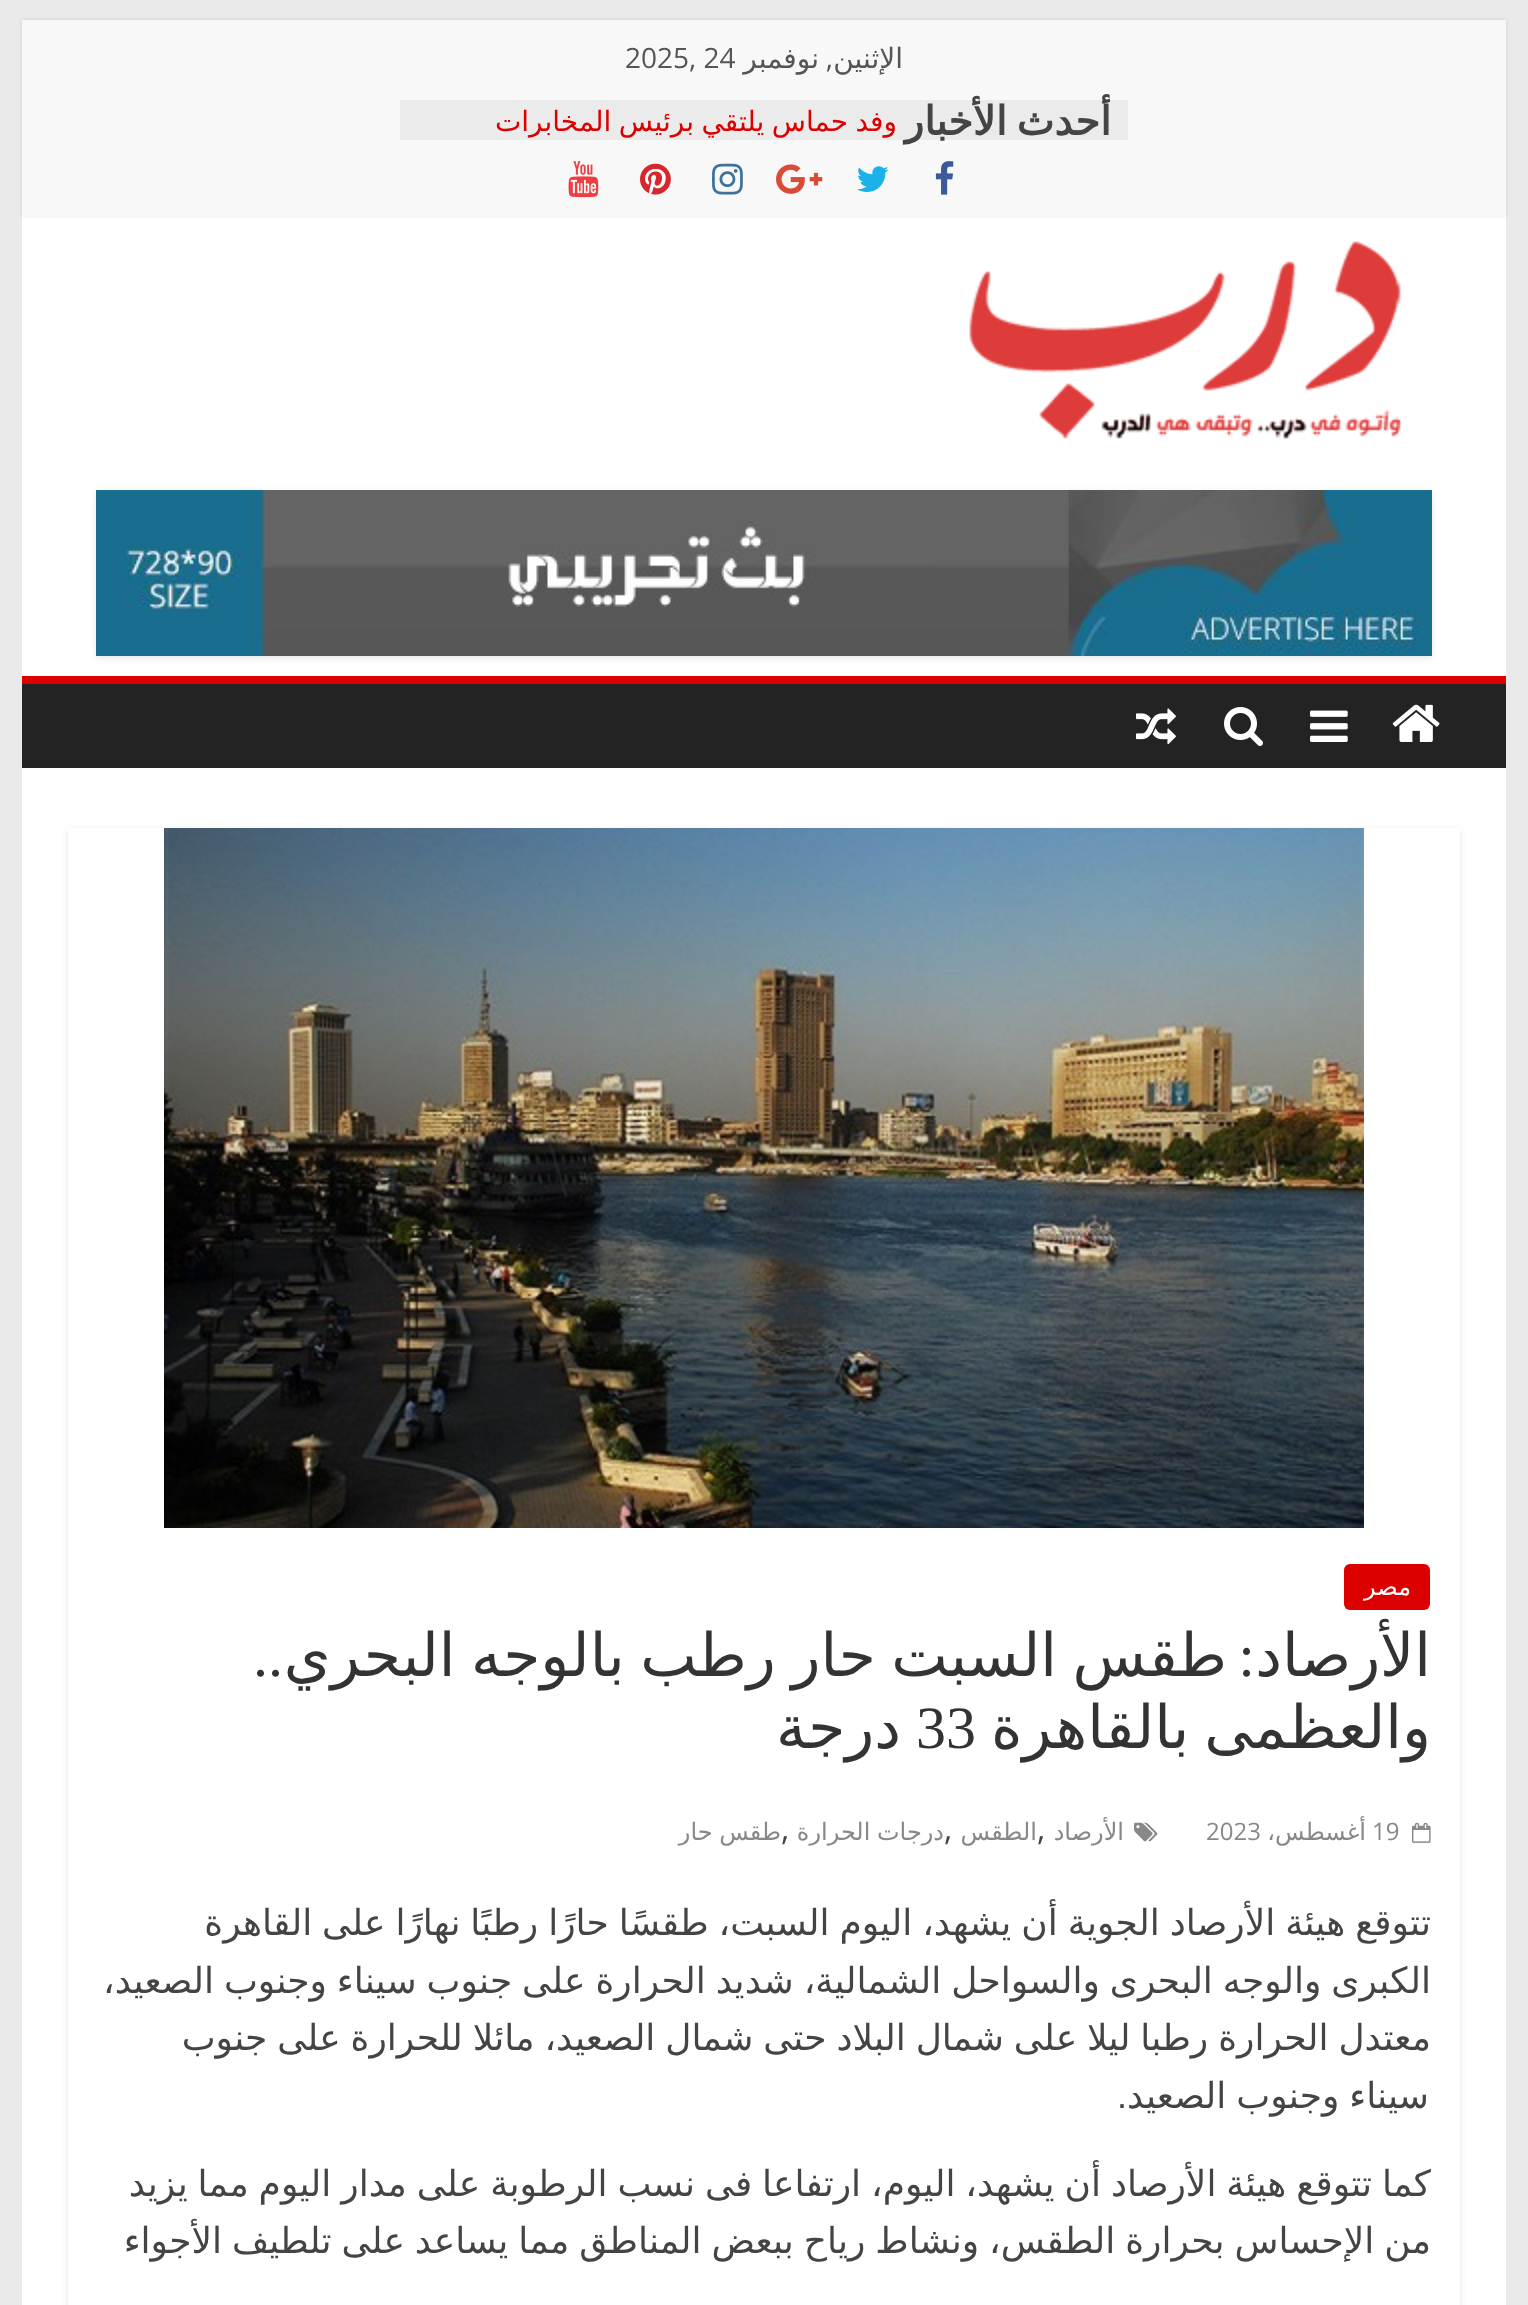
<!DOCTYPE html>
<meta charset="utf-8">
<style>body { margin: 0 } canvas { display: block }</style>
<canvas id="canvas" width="1528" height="2305"></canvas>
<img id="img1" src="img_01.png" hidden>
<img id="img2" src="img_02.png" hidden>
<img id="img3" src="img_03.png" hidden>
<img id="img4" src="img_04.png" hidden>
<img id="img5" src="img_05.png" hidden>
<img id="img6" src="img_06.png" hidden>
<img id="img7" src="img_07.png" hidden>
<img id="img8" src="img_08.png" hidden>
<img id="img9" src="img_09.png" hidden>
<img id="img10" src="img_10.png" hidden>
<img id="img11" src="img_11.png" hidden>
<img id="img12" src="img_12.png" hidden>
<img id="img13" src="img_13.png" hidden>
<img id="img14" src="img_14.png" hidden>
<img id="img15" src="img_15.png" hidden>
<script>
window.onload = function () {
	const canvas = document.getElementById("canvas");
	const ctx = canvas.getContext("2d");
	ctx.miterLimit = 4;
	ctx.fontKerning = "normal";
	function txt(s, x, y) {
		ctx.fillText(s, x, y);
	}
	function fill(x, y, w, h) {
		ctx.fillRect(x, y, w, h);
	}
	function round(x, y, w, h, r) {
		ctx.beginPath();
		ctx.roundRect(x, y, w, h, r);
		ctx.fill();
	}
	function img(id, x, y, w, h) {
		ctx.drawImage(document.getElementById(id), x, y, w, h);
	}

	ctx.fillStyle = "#EAEAEA";
	fill(0, 0, 1528, 2305);
	ctx.fillStyle = "#FFFFFF";
	fill(22, 216, 1484, 460);
	ctx.fillStyle = "rgba(0, 0, 0, 0.1)";
	ctx.filter = "blur(2px)";
	ctx.beginPath();
	ctx.rect(22, 20, 1484, 196);
	ctx.fill();
	ctx.filter = "none";
	ctx.fillStyle = "#F8F8F8";
	fill(22, 20, 1484, 196);
	ctx.fillStyle = "#EBEBEC";
	fill(400, 100, 728, 40);
	img("img1", 935, 161, 19, 34);
	img("img2", 857, 166, 32, 26);
	img("img3", 776, 164, 47, 30);
	img("img4", 712, 163, 31, 32);
	img("img5", 640, 163, 31, 32);
	img("img6", 568, 161, 31, 37);
	img("img7", 969, 241, 432, 198);
	ctx.fillStyle = "rgba(0, 0, 0, 0.1)";
	ctx.filter = "blur(3px)";
	ctx.beginPath();
	ctx.rect(96, 492, 1336, 166);
	ctx.fill();
	ctx.filter = "none";
	img("img8", 96, 490, 1336, 166);
	ctx.fillStyle = "#232323";
	fill(22, 684, 1484, 84);
	ctx.fillStyle = "#DD0000";
	fill(22, 676, 1484, 8);
	img("img9", 1392, 704, 48, 38);
	img("img10", 1310, 710, 38, 32);
	img("img11", 1224, 707, 39, 39);
	img("img12", 1136, 708, 40, 37);
	ctx.fillStyle = "#FFFFFF";
	fill(22, 768, 1484, 1537);
	ctx.save();
	ctx.beginPath();
	ctx.moveTo(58, 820);
	ctx.lineTo(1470, 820);
	ctx.lineTo(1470, 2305);
	ctx.lineTo(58, 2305);
	ctx.closePath();
	ctx.moveTo(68, 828);
	ctx.lineTo(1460, 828);
	ctx.lineTo(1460, 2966);
	ctx.lineTo(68, 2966);
	ctx.closePath();
	ctx.clip("evenodd");
	ctx.fillStyle = "rgba(0, 0, 0, 0.1)";
	ctx.filter = "blur(3px)";
	ctx.beginPath();
	ctx.rect(68, 830, 1392, 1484);
	ctx.fill();
	ctx.filter = "none";
	ctx.restore();
	img("img13", 164, 828, 1200, 700);
	ctx.fillStyle = "#DD0000";
	round(1344, 1564, 86, 46, 6);
	img("img14", 1412, 1822, 19, 21);
	img("img15", 1134, 1822, 24, 20);
	ctx.direction = "rtl";
	ctx.font = "28px DejaVu Sans";
	ctx.fillStyle = "#555555";
	txt("الإثنين", 903, 68);
	ctx.font = "28px Open Sans";
	txt(",", 833, 68);
	ctx.font = "28px DejaVu Sans";
	txt("نوفمبر", 819, 68);
	ctx.direction = "ltr";
	ctx.font = "28px Open Sans";
	txt("2025, 24", 625, 68);
	ctx.wordSpacing = "-3px";
	ctx.direction = "rtl";
	ctx.font = "bold 40px DejaVu Sans";
	ctx.fillStyle = "#444444";
	txt("أحدث الأخبار", 1111, 135);
	ctx.save();
	ctx.beginPath();
	ctx.rect(416, 100, 480, 40);
	ctx.clip();
	ctx.wordSpacing = "-1.5px";
	ctx.font = "28px DejaVu Sans";
	ctx.fillStyle = "#DD0000";
	txt("وفد حماس يلتقي برئيس المخابرات", 897, 131);
	ctx.restore();
	ctx.wordSpacing = "0px";
	ctx.font = "24px DejaVu Sans";
	ctx.fillStyle = "#FFFFFF";
	txt("مصر", 1411, 1595);
	ctx.font = "60px DejaVu Sans";
	ctx.fillStyle = "#333333";
	txt("الأرصاد", 1431, 1676);
	ctx.font = "60px Liberation Serif";
	txt(":", 1255, 1676);
	ctx.wordSpacing = "-3.5px";
	ctx.font = "60px DejaVu Sans";
	txt("طقس السبت حار رطب بالوجه البحري", 1227, 1676);
	ctx.wordSpacing = "0px";
	ctx.font = "60px Liberation Serif";
	txt("..", 283, 1676);
	ctx.wordSpacing = "-4px";
	ctx.font = "60px DejaVu Sans";
	txt("والعظمى بالقاهرة", 1431, 1748);
	ctx.wordSpacing = "0px";
	ctx.direction = "ltr";
	ctx.font = "60px Liberation Serif";
	txt("33", 916, 1748);
	ctx.direction = "rtl";
	ctx.font = "60px DejaVu Sans";
	txt("درجة", 901, 1748);
	ctx.direction = "ltr";
	ctx.font = "24px Open Sans";
	ctx.fillStyle = "#888888";
	txt("19", 1372, 1840);
	ctx.direction = "rtl";
	ctx.font = "24px DejaVu Sans";
	txt("أغسطس،", 1366, 1840);
	ctx.direction = "ltr";
	ctx.font = "24px Open Sans";
	txt("2023", 1206, 1840);
	ctx.direction = "rtl";
	ctx.font = "24px DejaVu Sans";
	txt("الأرصاد", 1124, 1840);
	ctx.direction = "ltr";
	ctx.font = "32px Open Sans";
	ctx.fillStyle = "#444444";
	txt(",", 1037, 1840);
	ctx.direction = "rtl";
	ctx.font = "24px DejaVu Sans";
	ctx.fillStyle = "#888888";
	txt("الطقس", 1037, 1840);
	ctx.direction = "ltr";
	ctx.font = "32px Open Sans";
	ctx.fillStyle = "#444444";
	txt(",", 944, 1840);
	ctx.wordSpacing = "-1px";
	ctx.direction = "rtl";
	ctx.font = "24px DejaVu Sans";
	ctx.fillStyle = "#888888";
	txt("درجات الحرارة", 944, 1840);
	ctx.wordSpacing = "0px";
	ctx.direction = "ltr";
	ctx.font = "32px Open Sans";
	ctx.fillStyle = "#444444";
	txt(",", 781, 1840);
	ctx.wordSpacing = "-1px";
	ctx.direction = "rtl";
	ctx.font = "24px DejaVu Sans";
	ctx.fillStyle = "#888888";
	txt("طقس حار", 781, 1840);
	ctx.wordSpacing = "-1.5px";
	ctx.font = "36px DejaVu Sans";
	ctx.fillStyle = "#444444";
	txt("تتوقع هيئة الأرصاد الجوية أن يشهد، اليوم السبت، طقسًا حارًا رطبًا نهارًا على القاهرة", 1431, 1935);
	txt("الكبرى والوجه البحرى والسواحل الشمالية، شديد الحرارة على جنوب سيناء وجنوب الصعيد،", 1431, 1993);
	txt("معتدل الحرارة رطبا ليلا على شمال البلاد حتى شمال الصعيد، مائلا للحرارة على جنوب", 1431, 2050);
	txt("سيناء وجنوب الصعيد", 1429, 2108);
	ctx.wordSpacing = "0px";
	ctx.font = "36px Liberation Sans";
	txt(".", 1127, 2108);
	ctx.wordSpacing = "-1.5px";
	ctx.font = "36px DejaVu Sans";
	txt("كما تتوقع هيئة الأرصاد أن يشهد، اليوم، ارتفاعا فى نسب الرطوبة على مدار اليوم مما يزيد", 1431, 2196);
	txt("من الإحساس بحرارة الطقس، ونشاط رياح ببعض المناطق مما يساعد على تلطيف الأجواء", 1431, 2253);
};
</script>
